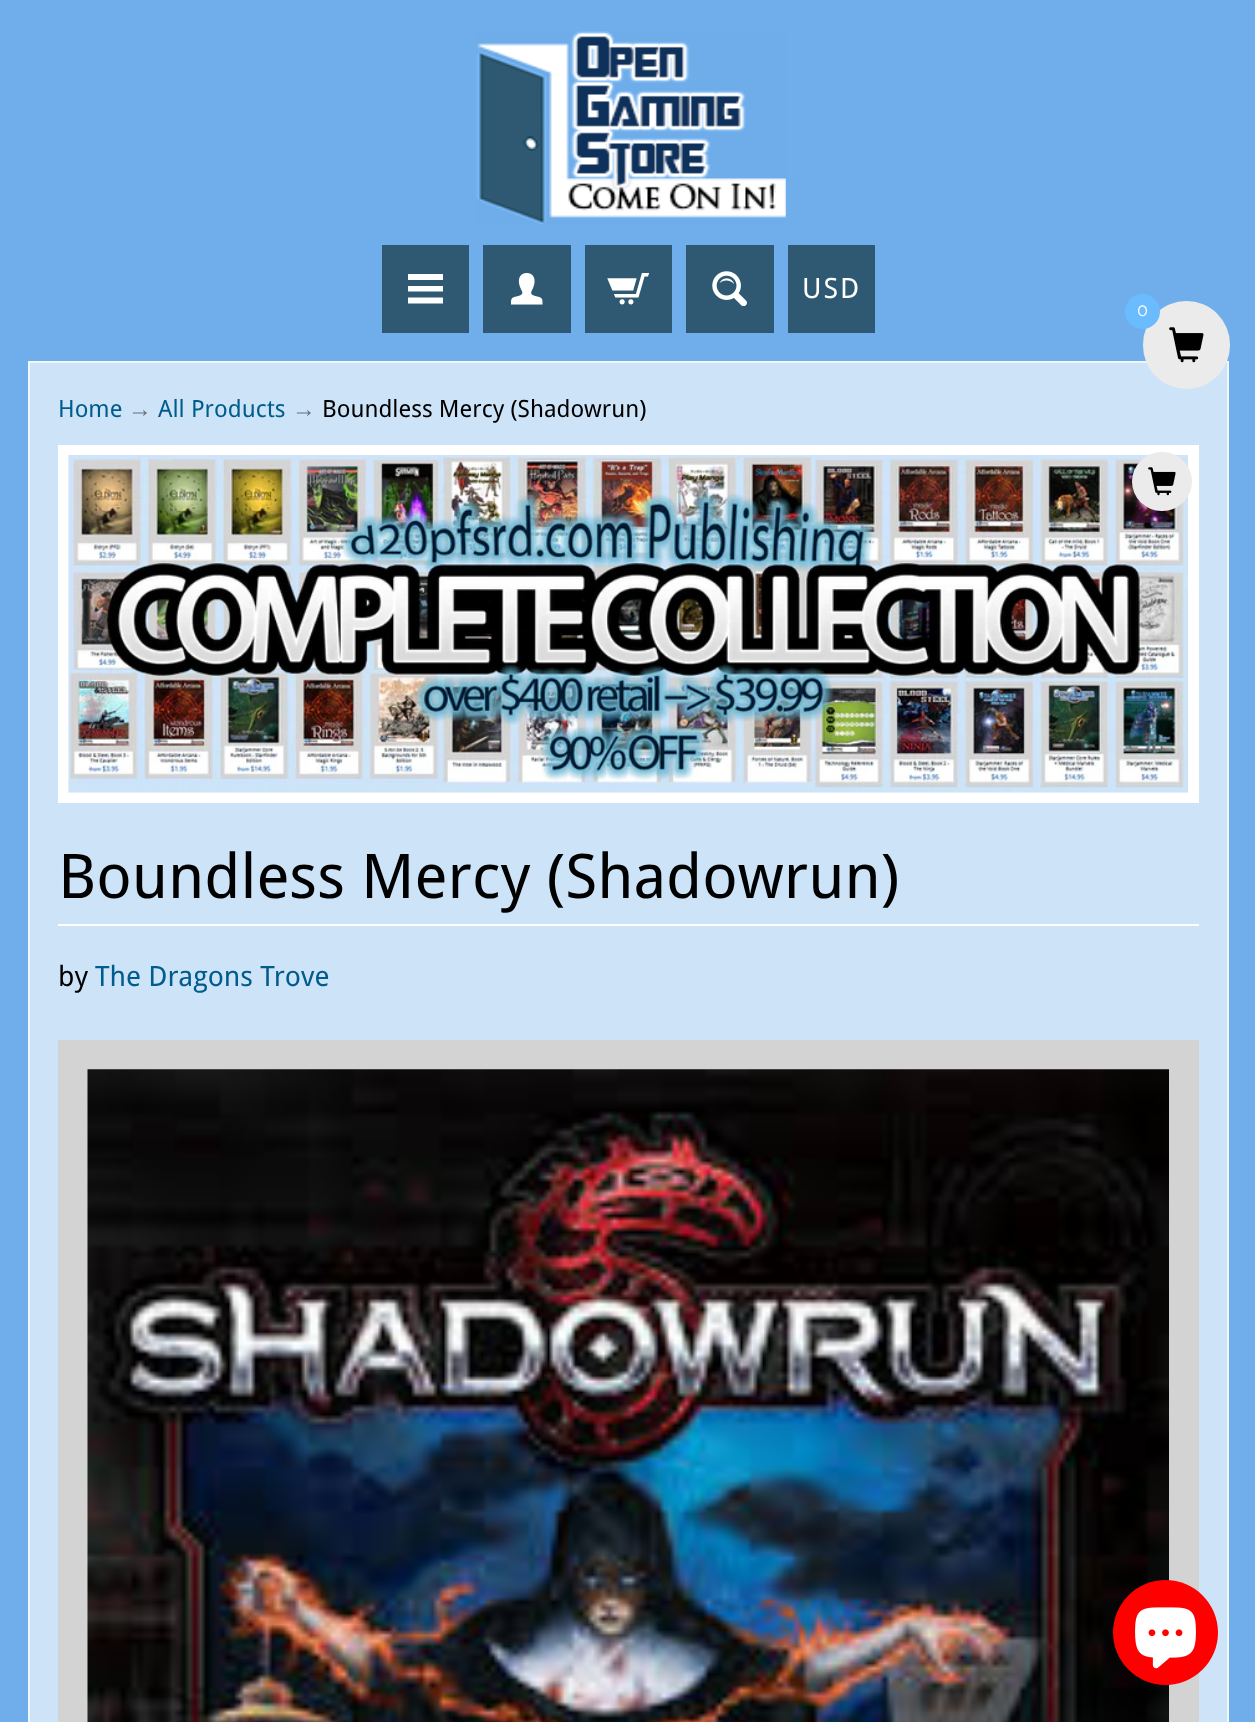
<!DOCTYPE html>
<meta charset="utf-8">
<style>body { margin: 0 } canvas { display: block }</style>
<canvas id="canvas" width="1255" height="1722"></canvas>
<img id="img1" src="img_01.png" hidden>
<img id="img2" src="img_02.png" hidden>
<img id="img3" src="img_03.png" hidden>
<img id="img4" src="img_04.png" hidden>
<img id="img5" src="img_06.png" hidden>
<img id="img6" src="img_05.png" hidden>
<img id="img7" src="img_07.png" hidden>
<img id="img8" src="img_08.png" hidden>
<img id="img9" src="img_09.png" hidden>
<script>
window.onload = function () {
	const canvas = document.getElementById("canvas");
	const ctx = canvas.getContext("2d");
	ctx.miterLimit = 4;
	ctx.fontKerning = "normal";
	function txt(s, x, y) {
		ctx.fillText(s, x, y);
	}
	function fill(x, y, w, h) {
		ctx.fillRect(x, y, w, h);
	}
	function round(x, y, w, h, r) {
		ctx.beginPath();
		ctx.roundRect(x, y, w, h, r);
		ctx.fill();
	}
	function img(id, x, y, w, h) {
		ctx.drawImage(document.getElementById(id), x, y, w, h);
	}

	ctx.fillStyle = "#6FAEEA";
	fill(0, 0, 1255, 1722);
	img("img1", 476, 31, 310, 193);
	ctx.fillStyle = "#2F5972";
	fill(382, 245, 87, 88);
	ctx.fillStyle = "#FFFFFF";
	ctx.beginPath();
	ctx.moveTo(443, 280);
	ctx.lineTo(408, 280);
	ctx.lineTo(408, 274);
	ctx.lineTo(443, 274);
	ctx.closePath();
	ctx.moveTo(443, 286);
	ctx.lineTo(408, 286);
	ctx.lineTo(408, 291.5);
	ctx.lineTo(443, 291.5);
	ctx.closePath();
	ctx.moveTo(443, 297.5);
	ctx.lineTo(408, 297.5);
	ctx.lineTo(408, 303.5);
	ctx.lineTo(443, 303.5);
	ctx.closePath();
	ctx.fill();
	ctx.fillStyle = "#2F5972";
	fill(483, 245, 88, 88);
	img("img2", 511, 273, 32, 32);
	fill(585, 245, 87, 88);
	img("img3", 607, 273, 42, 32);
	fill(686, 245, 88, 88);
	img("img4", 712, 271, 35, 35);
	fill(788, 245, 87, 88);
	ctx.fillStyle = "#CDE3F7";
	ctx.beginPath();
	ctx.rect(29, 362, 1199, 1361);
	ctx.fill();
	ctx.strokeStyle = "#F0F7FD";
	ctx.lineWidth = 2;
	ctx.stroke();
	ctx.fillStyle = "#FFFFFF";
	fill(58, 445, 1141, 358);
	img("img5", 68, 455, 1120, 338);
	ctx.fillStyle = "#EBEBEB";
	round(1132, 452, 60, 59, 29.5);
	img("img6", 1148, 467, 28, 29);
	ctx.fillStyle = "#FFFFFF";
	fill(58, 924, 1141, 2);
	ctx.fillStyle = "#D3D3D3";
	fill(58, 1040, 1141, 682);
	img("img7", 87, 1069, 1082, 653);
	ctx.fillStyle = "#EBEBEB";
	round(1143, 301, 87, 88, 43.5);
	ctx.fillStyle = "#6BBBFF";
	ctx.beginPath();
	ctx.arc(1142.5, 311.5, 17.5, 0, Math.PI * 2);
	ctx.fill();
	img("img8", 1169, 327, 35, 36);
	ctx.fillStyle = "#FF0000";
	ctx.beginPath();
	ctx.arc(1165.5, 1632.5, 52.5, 0, Math.PI * 2);
	ctx.fill();
	img("img9", 1135, 1607, 61, 62);
	ctx.letterSpacing = "2px";
	ctx.font = "28px Droid Sans";
	ctx.fillStyle = "#FFFFFF";
	txt("USD", 802, 298);
	ctx.letterSpacing = "0px";
	ctx.font = "23.75px Droid Sans";
	ctx.fillStyle = "#005C8C";
	txt("Home", 58, 417);
	ctx.font = "23.75px Liberation Sans";
	ctx.fillStyle = "#67727C";
	txt("→", 128, 417);
	ctx.font = "23.75px Droid Sans";
	ctx.fillStyle = "#005C8C";
	txt("All Products", 158, 417);
	ctx.font = "23.75px Liberation Sans";
	ctx.fillStyle = "#67727C";
	txt("→", 292, 417);
	ctx.font = "23.75px Droid Sans";
	ctx.fillStyle = "#000000";
	txt("Boundless Mercy (Shadowrun)", 322, 417);
	ctx.font = "61.6px Droid Sans";
	txt("Boundless Mercy (Shadowrun)", 58, 898);
	ctx.font = "28px Droid Sans";
	txt("by", 58, 986);
	ctx.fillStyle = "#005C8C";
	txt("The Dragons Trove", 95, 986);
	ctx.font = "100 18px Raleway";
	ctx.fillStyle = "#FFFFFF";
	txt("0", 1137, 316);
};
</script>
